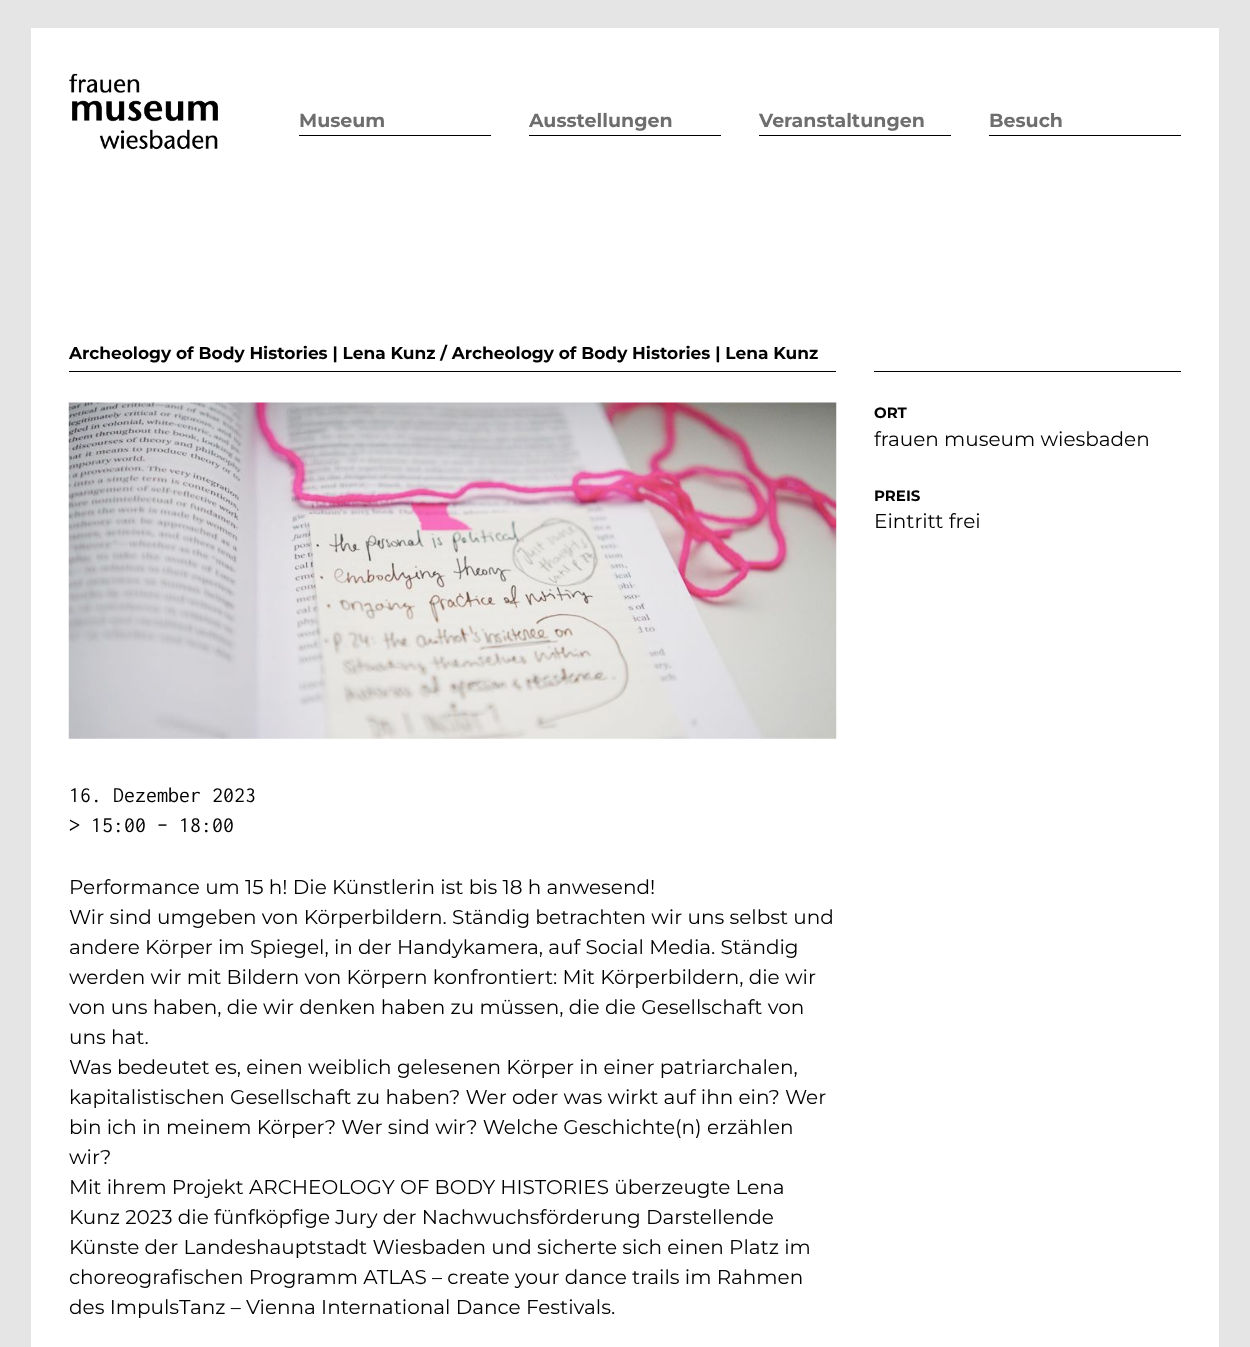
<!DOCTYPE html>
<meta charset="utf-8">
<style>body { margin: 0 } canvas { display: block }</style>
<canvas id="canvas" width="1250" height="1347"></canvas>
<img id="img1" src="img_01.png" hidden>
<img id="img2" src="img_02.png" hidden>
<script>
window.onload = function () {
	const canvas = document.getElementById("canvas");
	const ctx = canvas.getContext("2d");
	ctx.miterLimit = 4;
	ctx.fontKerning = "normal";
	function txt(s, x, y) {
		ctx.fillText(s, x, y);
	}
	function fill(x, y, w, h) {
		ctx.fillRect(x, y, w, h);
	}
	function img(id, x, y, w, h) {
		ctx.drawImage(document.getElementById(id), x, y, w, h);
	}

	ctx.fillStyle = "#FFFFFF";
	fill(0, 0, 1250, 1347);
	ctx.fillStyle = "#E5E5E5";
	fill(31, 0, 1188, 28);
	fill(1219, 0, 31, 1347);
	fill(0, 0, 31, 1347);
	img("img1", 69, 73, 149, 77);
	ctx.fillStyle = "#000000";
	fill(299, 135, 192, 1);
	fill(529, 135, 192, 1);
	fill(759, 135, 192, 1);
	fill(989, 135, 192, 1);
	fill(69, 371, 767, 1);
	img("img2", 68, 402, 769, 337);
	fill(874, 371, 307, 1);
	ctx.font = "bold 19px Montserrat";
	ctx.fillStyle = "#6E6E6E";
	txt("Museum", 299, 127);
	txt("Ausstellungen", 529, 127);
	txt("Veranstaltungen", 759, 127);
	txt("Besuch", 989, 127);
	ctx.font = "bold 17px Montserrat";
	ctx.fillStyle = "#000000";
	txt("Archeology of Body Histories | Lena Kunz / Archeology of Body Histories | Lena Kunz", 69, 359);
	ctx.font = "22px Inconsolata";
	txt("16. Dezember 2023", 69, 802);
	txt("> 15:00 – 18:00", 69, 832);
	ctx.font = "20px Montserrat";
	txt("Performance um 15 h! Die Künstlerin ist bis 18 h anwesend!", 69, 894);
	txt("Wir sind umgeben von Körperbildern. Ständig betrachten wir uns selbst und", 69, 924);
	txt("andere Körper im Spiegel, in der Handykamera, auf Social Media. Ständig", 69, 954);
	txt("werden wir mit Bildern von Körpern konfrontiert: Mit Körperbildern, die wir", 69, 984);
	txt("von uns haben, die wir denken haben zu müssen, die die Gesellschaft von", 69, 1014);
	txt("uns hat.", 69, 1044);
	txt("Was bedeutet es, einen weiblich gelesenen Körper in einer patriarchalen,", 69, 1074);
	txt("kapitalistischen Gesellschaft zu haben? Wer oder was wirkt auf ihn ein? Wer", 69, 1104);
	txt("bin ich in meinem Körper? Wer sind wir? Welche Geschichte(n) erzählen", 69, 1134);
	txt("wir?", 69, 1164);
	txt("Mit ihrem Projekt ARCHEOLOGY OF BODY HISTORIES überzeugte Lena", 69, 1194);
	txt("Kunz 2023 die fünfköpfige Jury der Nachwuchsförderung Darstellende", 69, 1224);
	txt("Künste der Landeshauptstadt Wiesbaden und sicherte sich einen Platz im", 69, 1254);
	txt("choreografischen Programm ATLAS – create your dance trails im Rahmen", 69, 1284);
	txt("des ImpulsTanz – Vienna International Dance Festivals.", 69, 1314);
	ctx.font = "bold 15px Montserrat";
	txt("ORT", 874, 418);
	ctx.font = "20px Montserrat";
	txt("frauen museum wiesbaden", 874, 446);
	ctx.font = "bold 15px Montserrat";
	txt("PREIS", 874, 501);
	ctx.font = "20px Montserrat";
	txt("Eintritt frei", 874, 528);
};
</script>
